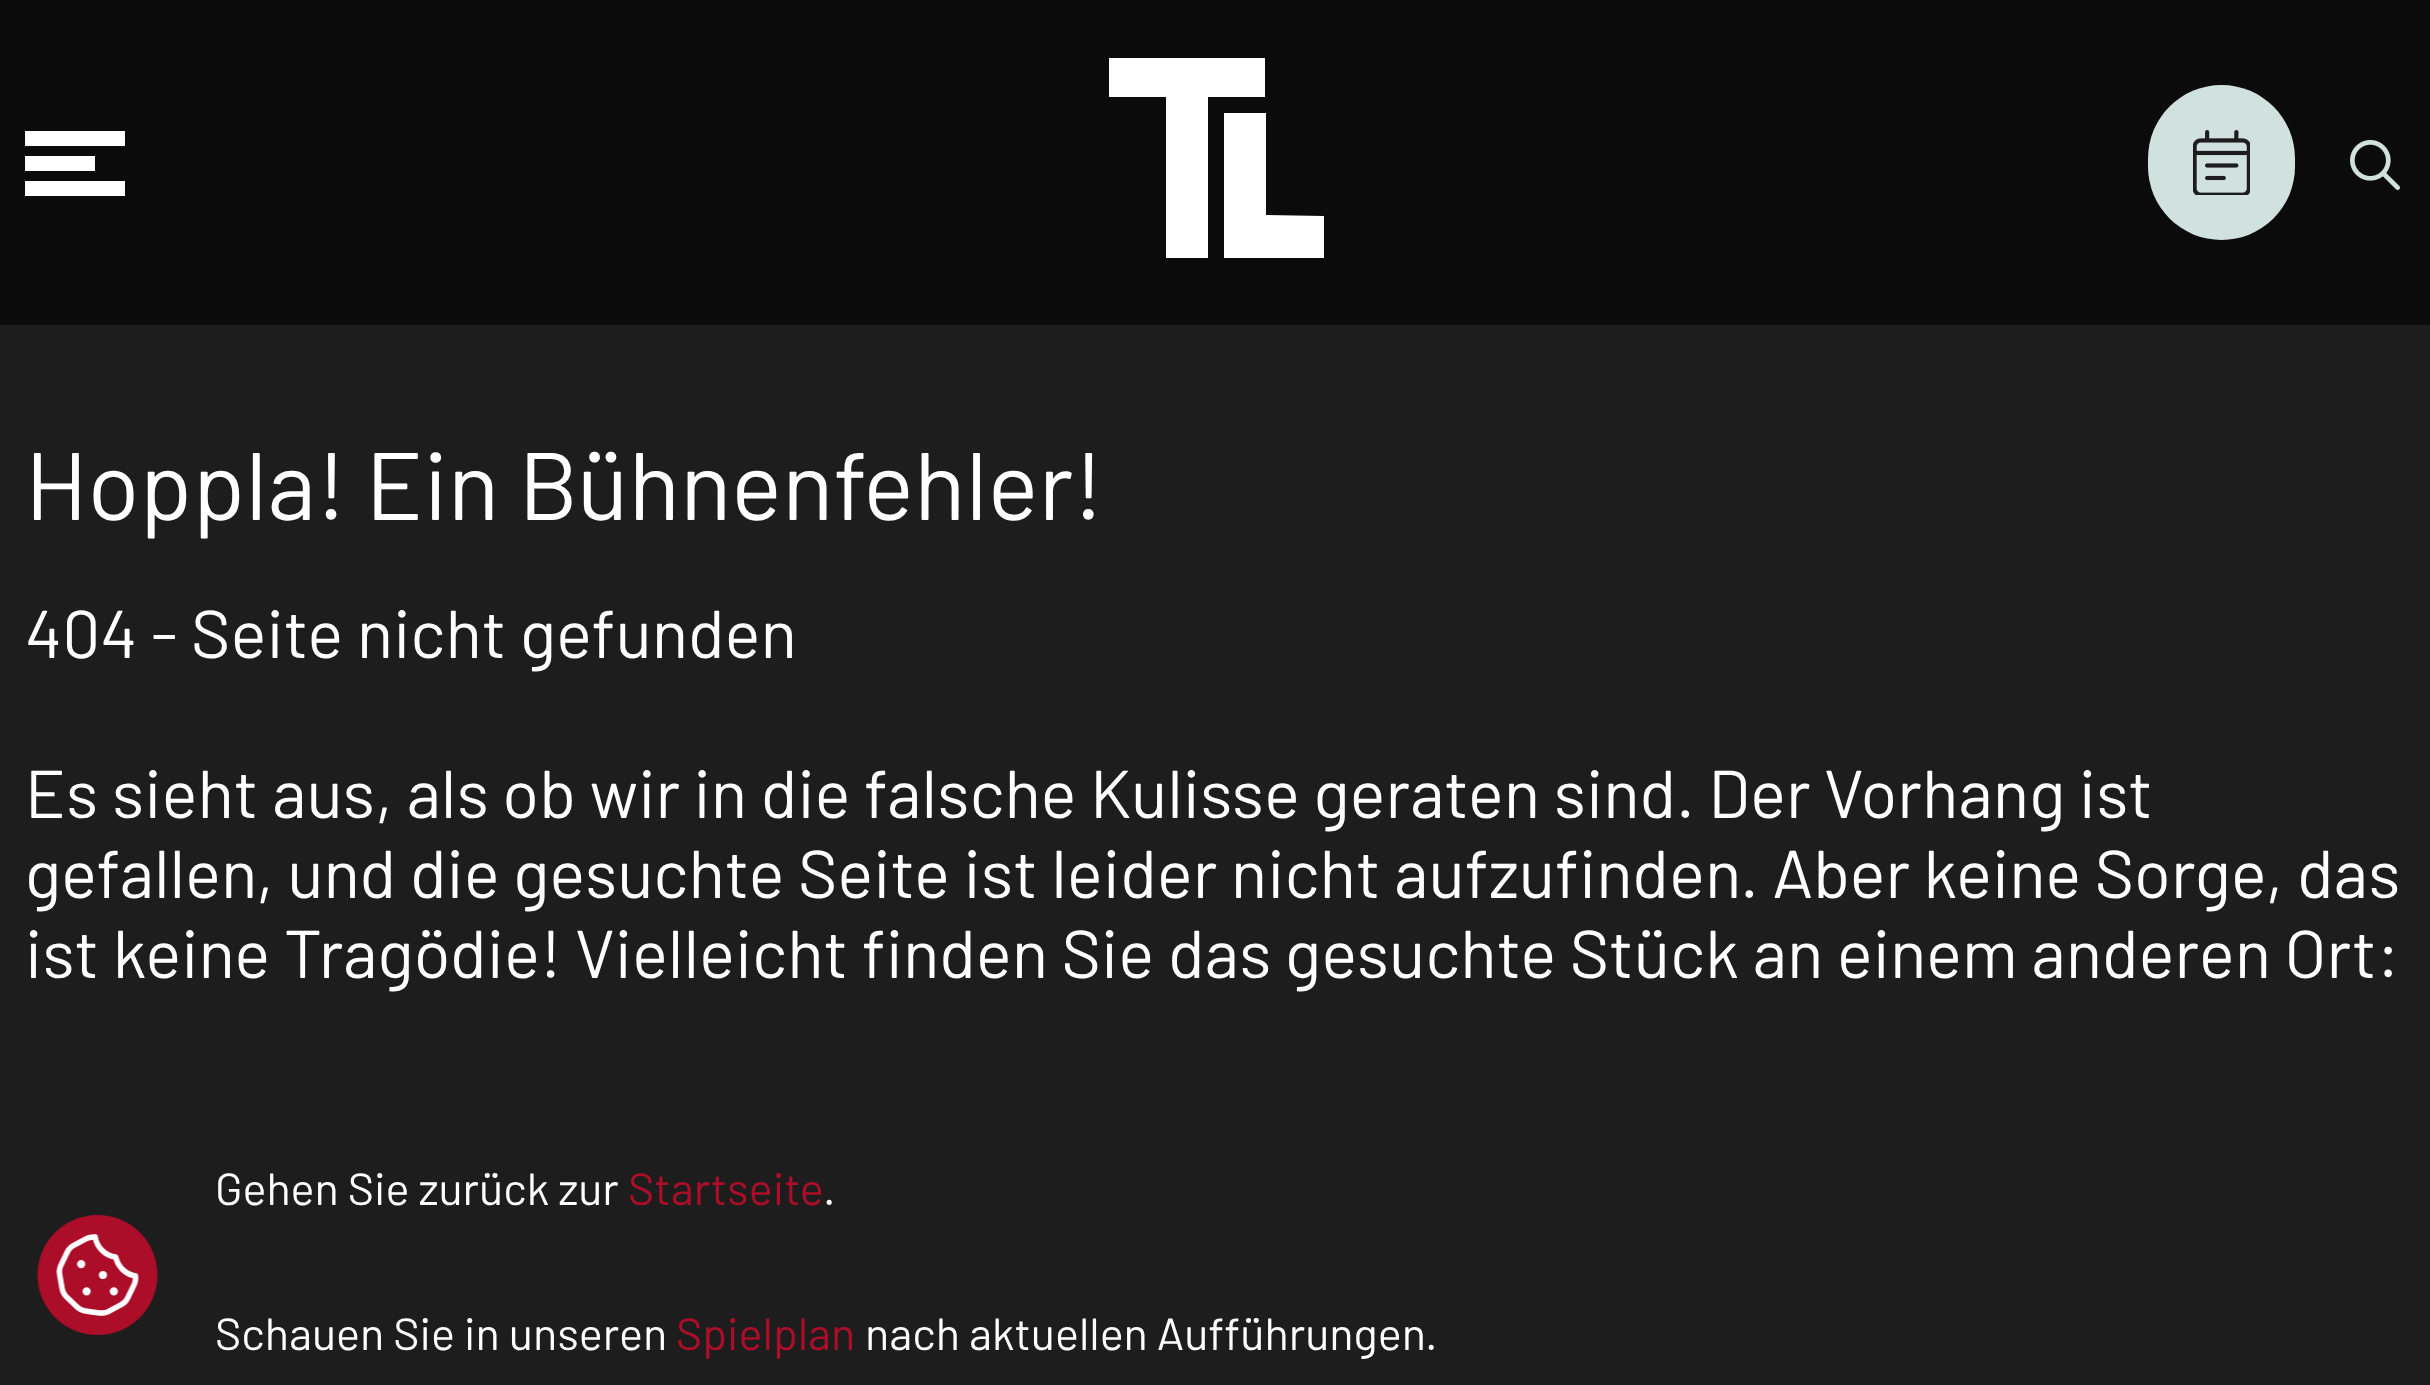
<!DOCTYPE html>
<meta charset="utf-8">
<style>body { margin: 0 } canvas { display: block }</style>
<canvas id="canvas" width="2430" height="1385"></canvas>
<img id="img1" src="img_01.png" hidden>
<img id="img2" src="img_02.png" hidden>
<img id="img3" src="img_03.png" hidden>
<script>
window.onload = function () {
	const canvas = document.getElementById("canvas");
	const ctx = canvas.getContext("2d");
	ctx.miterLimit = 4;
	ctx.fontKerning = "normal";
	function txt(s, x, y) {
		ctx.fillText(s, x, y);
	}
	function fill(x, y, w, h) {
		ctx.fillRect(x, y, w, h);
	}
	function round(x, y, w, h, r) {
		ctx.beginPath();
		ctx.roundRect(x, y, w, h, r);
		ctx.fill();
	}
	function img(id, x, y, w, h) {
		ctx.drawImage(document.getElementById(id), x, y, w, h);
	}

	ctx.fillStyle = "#1D1D1D";
	fill(0, 0, 2430, 1385);
	ctx.fillStyle = "#0B0B0B";
	fill(0, 0, 2430, 325);
	ctx.fillStyle = "#FFFFFF";
	fill(25, 131, 100, 15);
	fill(25, 156, 70, 15);
	fill(25, 181, 100, 15);
	ctx.beginPath();
	ctx.moveTo(1109, 58);
	ctx.lineTo(1109, 97);
	ctx.lineTo(1166, 97);
	ctx.lineTo(1166, 258);
	ctx.lineTo(1208, 258);
	ctx.lineTo(1208, 97);
	ctx.lineTo(1265, 97);
	ctx.lineTo(1265, 58);
	ctx.closePath();
	ctx.fill();
	ctx.beginPath();
	ctx.moveTo(1266, 113);
	ctx.lineTo(1266, 215);
	ctx.lineTo(1324, 216);
	ctx.lineTo(1324, 258);
	ctx.lineTo(1224, 258);
	ctx.lineTo(1224, 113);
	ctx.closePath();
	ctx.fill();
	ctx.fillStyle = "#D1E2DE";
	round(2148, 85, 147, 155, 73.5);
	img("img1", 2193, 130, 57, 65);
	img("img2", 2350, 140, 50, 50);
	img("img3", 37, 1215, 121, 120);
	ctx.font = "95.6px Barlow";
	ctx.fillStyle = "#FFFFFF";
	txt("Hoppla! Ein Bühnenfehler!", 25, 520);
	ctx.font = "67.5px Barlow";
	txt("404 - Seite nicht gefunden", 25, 658);
	txt("Es sieht aus, als ob wir in die falsche Kulisse geraten sind. Der Vorhang ist", 25, 818);
	txt("gefallen, und die gesuchte Seite ist leider nicht aufzufinden. Aber keine Sorge, das", 25, 898);
	txt("ist keine Tragödie! Vielleicht finden Sie das gesuchte Stück an einem anderen Ort:", 25, 978);
	ctx.font = "45px Barlow";
	txt("Gehen Sie zurück zur", 215, 1205);
	ctx.fillStyle = "#AC0D29";
	txt("Startseite", 628, 1205);
	ctx.fillStyle = "#FFFFFF";
	txt(".", 823, 1205);
	txt("Schauen Sie in unseren", 215, 1350);
	ctx.fillStyle = "#AC0D29";
	txt("Spielplan", 676, 1350);
	ctx.fillStyle = "#FFFFFF";
	txt("nach aktuellen Aufführungen.", 865, 1350);
};
</script>
